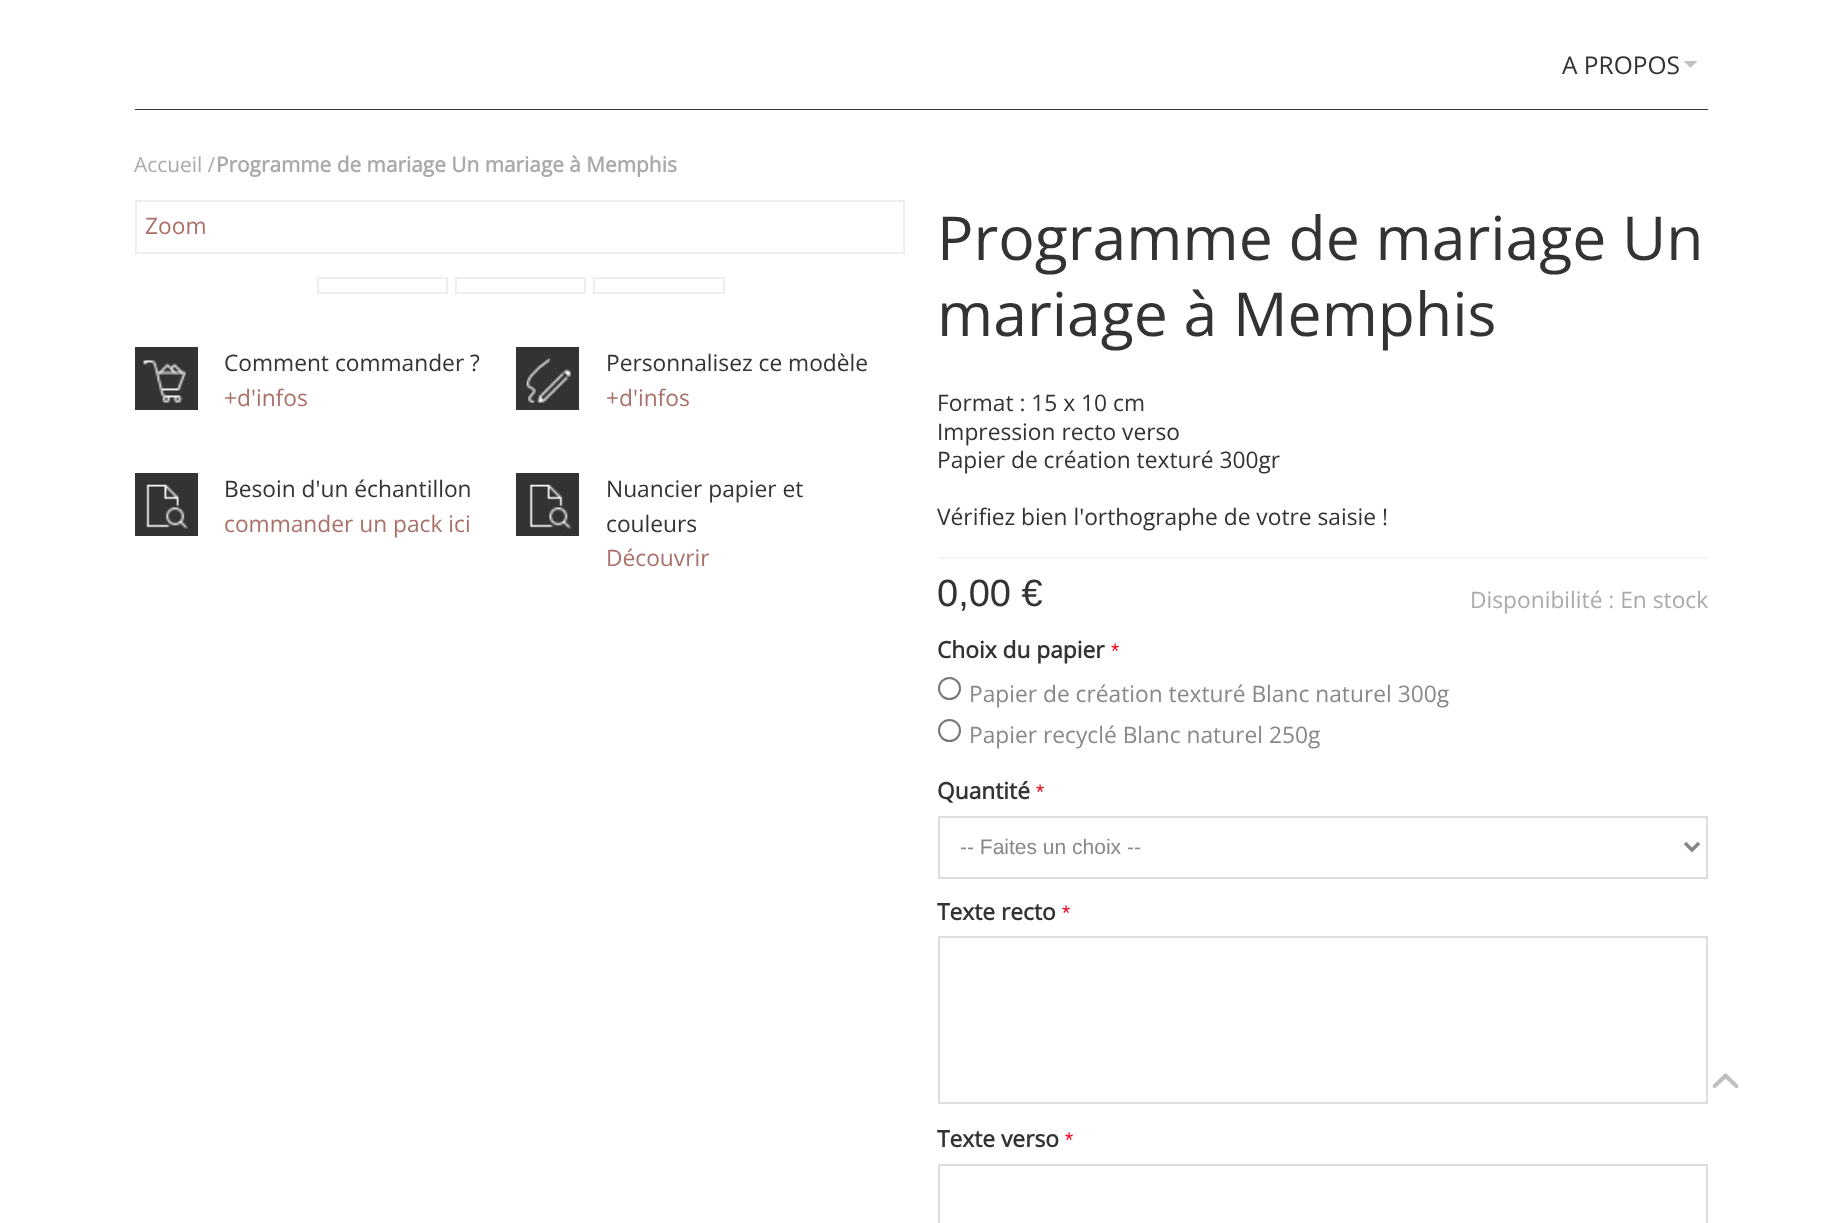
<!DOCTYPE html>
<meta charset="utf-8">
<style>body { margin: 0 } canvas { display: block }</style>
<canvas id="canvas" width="1821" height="1223"></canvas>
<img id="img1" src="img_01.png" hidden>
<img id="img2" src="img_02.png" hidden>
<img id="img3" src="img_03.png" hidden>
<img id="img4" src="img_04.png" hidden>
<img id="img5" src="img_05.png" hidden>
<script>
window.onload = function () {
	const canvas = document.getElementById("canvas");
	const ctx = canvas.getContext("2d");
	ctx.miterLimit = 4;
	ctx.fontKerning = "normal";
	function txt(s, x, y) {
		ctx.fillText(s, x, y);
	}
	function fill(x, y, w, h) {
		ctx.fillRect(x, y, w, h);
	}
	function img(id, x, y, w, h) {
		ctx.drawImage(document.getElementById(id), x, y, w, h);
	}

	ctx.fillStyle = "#FFFFFF";
	fill(0, 0, 1821, 1223);
	ctx.fillStyle = "#C2C2C2";
	ctx.beginPath();
	ctx.moveTo(1683.5, 61);
	ctx.lineTo(1697.5, 61);
	ctx.lineTo(1690.5, 68);
	ctx.closePath();
	ctx.fill();
	ctx.fillStyle = "#333333";
	fill(135, 109, 1573, 1);
	ctx.strokeStyle = "#EEEEEE";
	ctx.lineWidth = 2;
	ctx.strokeRect(136, 201, 768, 52);
	ctx.strokeRect(318, 278, 129, 15);
	ctx.strokeRect(456, 278, 129, 15);
	ctx.strokeRect(594, 278, 130, 15);
	fill(135, 347, 63, 63);
	img("img1", 143, 360, 43, 43);
	fill(516, 347, 63, 63);
	img("img2", 526, 358, 45, 45);
	fill(135, 473, 63, 63);
	img("img3", 146, 484, 42, 45);
	fill(516, 473, 63, 63);
	img("img4", 529, 484, 42, 45);
	ctx.fillStyle = "#F5F5F5";
	fill(938, 557, 770, 2);
	ctx.beginPath();
	ctx.arc(949.5, 688.5, 10.5, 0, Math.PI * 2);
	ctx.strokeStyle = "#767676";
	ctx.stroke();
	ctx.beginPath();
	ctx.arc(949.5, 730.5, 10.5, 0, Math.PI * 2);
	ctx.stroke();
	ctx.strokeStyle = "#DDDDDD";
	ctx.strokeRect(939, 817, 768, 61);
	ctx.beginPath();
	ctx.moveTo(1685, 843);
	ctx.lineTo(1692, 850);
	ctx.lineTo(1699, 843);
	ctx.strokeStyle = "#888888";
	ctx.lineWidth = 3.5;
	ctx.stroke();
	ctx.strokeStyle = "#DDDDDD";
	ctx.lineWidth = 2;
	ctx.strokeRect(939, 937, 768, 166);
	ctx.strokeRect(939, 1165, 768, 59);
	img("img5", 1712, 1073, 27, 15);
	ctx.font = "24.5px Open Sans";
	ctx.fillStyle = "#333333";
	txt("A PROPOS", 1562, 74);
	ctx.font = "20.85px Open Sans";
	ctx.fillStyle = "#AAAAAA";
	txt("Accueil /", 134, 172);
	ctx.font = "bold 20.85px Open Sans";
	txt("Programme de mariage Un mariage à Memphis", 216, 172);
	ctx.font = "22.75px Open Sans";
	ctx.fillStyle = "#AA716A";
	txt("Zoom", 145, 234);
	ctx.fillStyle = "#333333";
	txt("Comment commander ?", 224, 371);
	ctx.fillStyle = "#AA716A";
	txt("+d'infos", 224, 406);
	ctx.fillStyle = "#333333";
	txt("Personnalisez ce modèle", 606, 371);
	ctx.fillStyle = "#AA716A";
	txt("+d'infos", 606, 406);
	ctx.fillStyle = "#333333";
	txt("Besoin d'un échantillon", 224, 497);
	ctx.fillStyle = "#AA716A";
	txt("commander un pack ici", 224, 532);
	ctx.fillStyle = "#333333";
	txt("Nuancier papier et", 606, 497);
	txt("couleurs", 606, 532);
	ctx.fillStyle = "#AA716A";
	txt("Découvrir", 606, 566);
	ctx.font = "60.7px Open Sans";
	ctx.fillStyle = "#333333";
	txt("Programme de mariage Un", 937, 260);
	txt("mariage à Memphis", 937, 336);
	ctx.font = "22.75px Open Sans";
	txt("Format : 15 x 10 cm", 937, 411);
	txt("Impression recto verso", 937, 440);
	txt("Papier de création texturé 300gr", 937, 468);
	txt("Vérifiez bien l'orthographe de votre saisie !", 937, 525);
	ctx.font = "38px Liberation Sans";
	txt("0,00 €", 937, 606);
	ctx.font = "22.75px Open Sans";
	ctx.fillStyle = "#AAAAAA";
	txt("Disponibilité : En stock", 1470, 608);
	ctx.font = "bold 22.75px Open Sans";
	ctx.fillStyle = "#333333";
	txt("Choix du papier", 937, 658);
	ctx.font = "21px Liberation Sans";
	ctx.fillStyle = "#EE001C";
	txt("*", 1111, 658);
	ctx.font = "22.75px Open Sans";
	ctx.fillStyle = "#888888";
	txt("Papier de création texturé Blanc naturel 300g", 969, 702);
	txt("Papier recyclé Blanc naturel 250g", 969, 743);
	ctx.font = "bold 22.75px Open Sans";
	ctx.fillStyle = "#333333";
	txt("Quantité", 937, 799);
	ctx.font = "21px Liberation Sans";
	ctx.fillStyle = "#EE001C";
	txt("*", 1036, 799);
	ctx.fillStyle = "#888888";
	txt("-- Faites un choix --", 960, 854);
	ctx.font = "bold 22.75px Open Sans";
	ctx.fillStyle = "#333333";
	txt("Texte recto", 937, 920);
	ctx.font = "21px Liberation Sans";
	ctx.fillStyle = "#EE001C";
	txt("*", 1062, 920);
	ctx.font = "bold 22.75px Open Sans";
	ctx.fillStyle = "#333333";
	txt("Texte verso", 937, 1147);
	ctx.font = "21px Liberation Sans";
	ctx.fillStyle = "#EE001C";
	txt("*", 1065, 1147);
};
</script>
